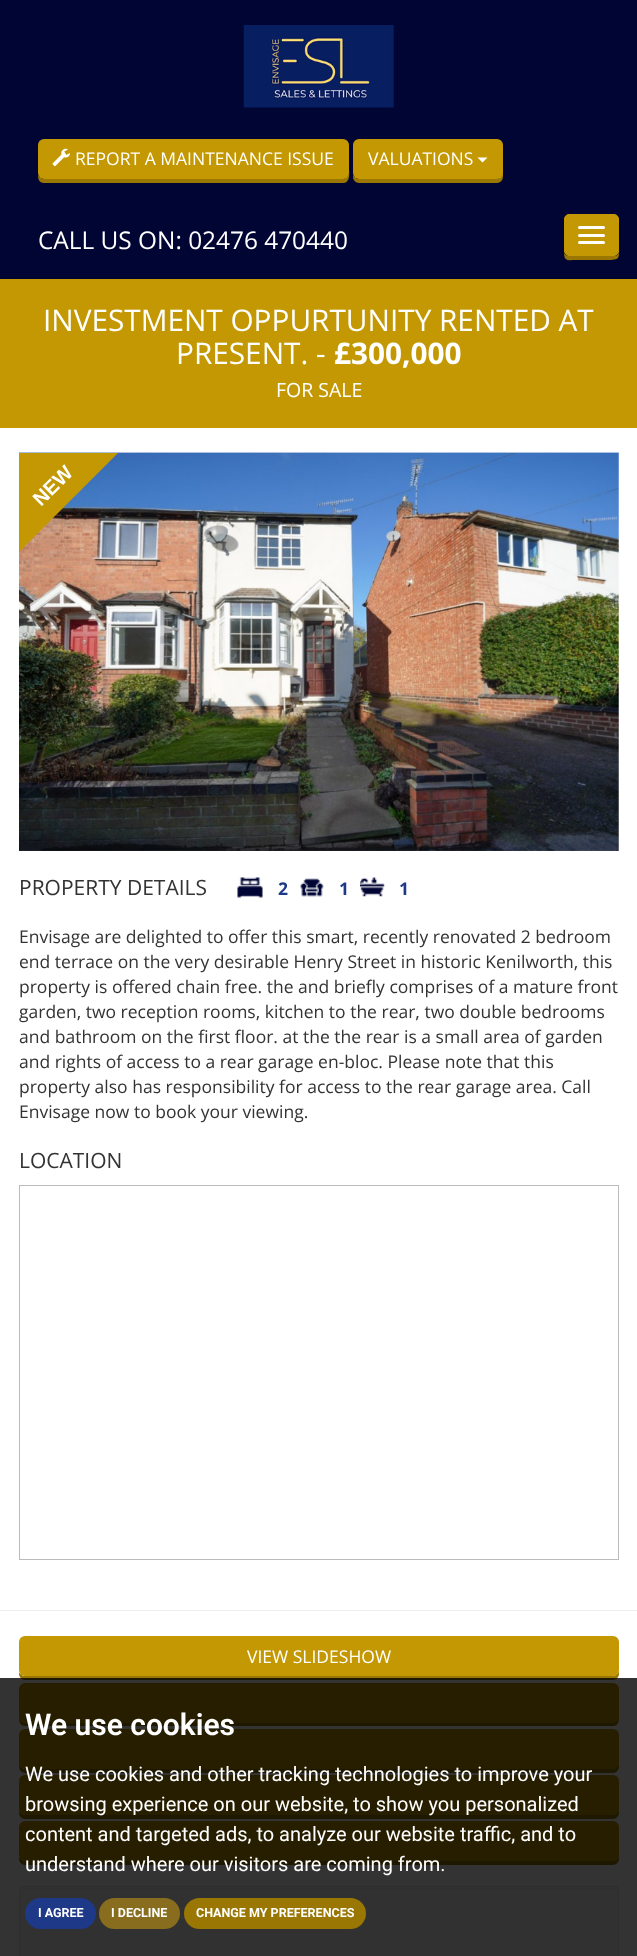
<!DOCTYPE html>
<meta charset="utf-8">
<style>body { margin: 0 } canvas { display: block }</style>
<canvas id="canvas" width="637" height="1956"></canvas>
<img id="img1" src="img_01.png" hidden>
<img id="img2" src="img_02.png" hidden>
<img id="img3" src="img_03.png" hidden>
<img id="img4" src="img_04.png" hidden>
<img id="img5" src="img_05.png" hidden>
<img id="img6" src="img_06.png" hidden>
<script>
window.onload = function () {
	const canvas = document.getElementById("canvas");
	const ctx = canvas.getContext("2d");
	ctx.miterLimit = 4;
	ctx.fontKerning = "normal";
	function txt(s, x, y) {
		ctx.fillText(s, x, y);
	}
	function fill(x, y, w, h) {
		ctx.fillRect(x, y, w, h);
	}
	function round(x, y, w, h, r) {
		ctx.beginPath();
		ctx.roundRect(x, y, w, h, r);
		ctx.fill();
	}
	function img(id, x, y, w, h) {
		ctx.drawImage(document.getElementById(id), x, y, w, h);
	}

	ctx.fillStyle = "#010534";
	fill(0, 0, 637, 1956);
	img("img1", 243, 25, 151, 83);
	ctx.fillStyle = "#997702";
	ctx.beginPath();
	ctx.moveTo(38, 175);
	ctx.bezierCurveTo(38, 179, 39, 183, 44, 183);
	ctx.lineTo(343, 183);
	ctx.bezierCurveTo(351, 183, 349, 172, 349, 168);
	ctx.lineTo(349, 147);
	ctx.lineTo(349, 172);
	ctx.bezierCurveTo(349, 176, 346, 179, 342, 179);
	ctx.lineTo(44, 179);
	ctx.bezierCurveTo(41, 179, 39, 177, 38, 175);
	ctx.closePath();
	ctx.fill();
	ctx.fillStyle = "#C49802";
	round(38, 139, 311, 40, 6);
	img("img2", 52, 148, 18, 19);
	ctx.fillStyle = "#997702";
	ctx.beginPath();
	ctx.moveTo(353, 175);
	ctx.lineTo(353, 177);
	ctx.bezierCurveTo(353, 180, 356, 183, 359, 183);
	ctx.lineTo(497, 183);
	ctx.bezierCurveTo(500, 183, 503, 180, 503, 177);
	ctx.lineTo(503, 149);
	ctx.lineTo(502, 147);
	ctx.lineTo(502, 172);
	ctx.bezierCurveTo(502, 176, 500, 179, 496, 179);
	ctx.lineTo(359, 179);
	ctx.bezierCurveTo(356, 179, 354, 177, 353, 175);
	ctx.closePath();
	ctx.fill();
	ctx.fillStyle = "#C49802";
	round(353, 139, 150, 40, 6);
	ctx.fillStyle = "#FFFFFF";
	ctx.beginPath();
	ctx.moveTo(477.5, 157.5);
	ctx.lineTo(487.5, 157.5);
	ctx.lineTo(482.5, 162.5);
	ctx.closePath();
	ctx.fill();
	ctx.fillStyle = "#997702";
	ctx.beginPath();
	ctx.moveTo(564, 253);
	ctx.bezierCurveTo(564, 262, 569, 260, 576, 260);
	ctx.lineTo(606, 260);
	ctx.bezierCurveTo(621, 260, 619, 259, 619, 244);
	ctx.lineTo(619, 221);
	ctx.lineTo(619, 251);
	ctx.bezierCurveTo(619, 254, 617, 256, 614, 256);
	ctx.lineTo(569, 256);
	ctx.bezierCurveTo(567, 256, 565, 255, 564, 253);
	ctx.closePath();
	ctx.fill();
	ctx.fillStyle = "#C49802";
	ctx.beginPath();
	ctx.roundRect(564.5, 214.5, 54, 41, 4.5);
	ctx.fill();
	ctx.strokeStyle = "#C49802";
	ctx.stroke();
	ctx.fillStyle = "#FFFFFF";
	round(578, 226, 27, 3, 1.5);
	round(578, 234, 27, 3, 1.5);
	round(578, 241, 27, 3, 1.5);
	ctx.fillStyle = "#C49802";
	fill(0, 279, 637, 149);
	ctx.fillStyle = "#FFFFFF";
	fill(0, 428, 637, 1528);
	img("img3", 19, 452, 600, 399);
	ctx.save();
	ctx.beginPath();
	ctx.rect(19, 453, 100, 100);
	ctx.clip();
	ctx.fillStyle = "#C49802";
	ctx.beginPath();
	ctx.moveTo(19, 452);
	ctx.lineTo(19, 552);
	ctx.lineTo(119, 452);
	ctx.closePath();
	ctx.fill("evenodd");
	ctx.restore();
	img("img4", 237, 877, 26, 21);
	img("img5", 300, 878, 24, 19);
	img("img6", 360, 877, 25, 20);
	ctx.strokeStyle = "#BBBBBB";
	ctx.strokeRect(19.5, 1185.5, 599, 374);
	ctx.fillStyle = "#EEEEEE";
	fill(0, 1610, 637, 1);
	ctx.fillStyle = "#997702";
	ctx.beginPath();
	ctx.moveTo(19, 1672);
	ctx.lineTo(19, 1674);
	ctx.bezierCurveTo(19, 1677, 22, 1680, 25, 1680);
	ctx.lineTo(613, 1680);
	ctx.bezierCurveTo(616, 1680, 619, 1677, 619, 1674);
	ctx.lineTo(619, 1644);
	ctx.lineTo(619, 1670);
	ctx.bezierCurveTo(619, 1673, 616, 1676, 612, 1676);
	ctx.lineTo(25, 1676);
	ctx.bezierCurveTo(22, 1676, 20, 1674, 19, 1672);
	ctx.closePath();
	ctx.fill();
	ctx.fillStyle = "#C49802";
	round(19, 1636, 600, 40, 6);
	ctx.fillStyle = "#997702";
	ctx.beginPath();
	ctx.moveTo(19, 1718);
	ctx.bezierCurveTo(19, 1722, 20, 1726, 25, 1726);
	ctx.lineTo(613, 1726);
	ctx.bezierCurveTo(619, 1726, 619, 1720, 619, 1715);
	ctx.lineTo(619, 1690);
	ctx.lineTo(619, 1716);
	ctx.bezierCurveTo(619, 1720, 616, 1722, 612, 1722);
	ctx.lineTo(25, 1722);
	ctx.bezierCurveTo(22, 1722, 20, 1721, 19, 1718);
	ctx.closePath();
	ctx.fill();
	ctx.fillStyle = "#C49802";
	round(19, 1683, 600, 40, 6);
	ctx.fillStyle = "#997702";
	ctx.beginPath();
	ctx.moveTo(19, 1764);
	ctx.lineTo(19, 1767);
	ctx.bezierCurveTo(19, 1770, 22, 1773, 25, 1773);
	ctx.lineTo(613, 1773);
	ctx.bezierCurveTo(616, 1773, 619, 1770, 619, 1767);
	ctx.lineTo(619, 1737);
	ctx.lineTo(619, 1762);
	ctx.bezierCurveTo(619, 1766, 616, 1769, 612, 1769);
	ctx.lineTo(25, 1769);
	ctx.bezierCurveTo(22, 1769, 20, 1767, 19, 1764);
	ctx.closePath();
	ctx.fill();
	ctx.fillStyle = "#C49802";
	round(19, 1729, 600, 40, 6);
	ctx.fillStyle = "#997702";
	ctx.beginPath();
	ctx.moveTo(19, 1811);
	ctx.lineTo(19, 1813);
	ctx.bezierCurveTo(19, 1816, 22, 1819, 25, 1819);
	ctx.lineTo(613, 1819);
	ctx.bezierCurveTo(616, 1819, 619, 1816, 619, 1813);
	ctx.lineTo(619, 1783);
	ctx.lineTo(619, 1809);
	ctx.bezierCurveTo(619, 1812, 616, 1815, 612, 1815);
	ctx.lineTo(25, 1815);
	ctx.bezierCurveTo(22, 1815, 20, 1813, 19, 1811);
	ctx.closePath();
	ctx.fill();
	ctx.fillStyle = "#C49802";
	round(19, 1775, 600, 40, 6);
	ctx.fillStyle = "#997702";
	ctx.beginPath();
	ctx.moveTo(19, 1857);
	ctx.lineTo(19, 1859);
	ctx.bezierCurveTo(19, 1862, 22, 1865, 25, 1865);
	ctx.lineTo(613, 1865);
	ctx.bezierCurveTo(616, 1865, 619, 1862, 619, 1859);
	ctx.lineTo(619, 1829);
	ctx.lineTo(619, 1855);
	ctx.bezierCurveTo(619, 1858, 616, 1861, 612, 1861);
	ctx.lineTo(25, 1861);
	ctx.bezierCurveTo(22, 1861, 20, 1859, 19, 1857);
	ctx.closePath();
	ctx.fill();
	ctx.fillStyle = "#C49802";
	round(19, 1821, 600, 40, 6);
	ctx.fillStyle = "#F5F5F5";
	round(19, 1886, 600, 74, 4);
	ctx.fillStyle = "#E9E9E9";
	ctx.beginPath();
	ctx.moveTo(22, 1889);
	ctx.lineTo(615, 1889);
	ctx.bezierCurveTo(616, 1889, 618, 1890, 618, 1891);
	ctx.bezierCurveTo(618, 1889, 617, 1888, 616, 1888);
	ctx.lineTo(22, 1888);
	ctx.bezierCurveTo(21, 1888, 20, 1889, 20, 1891);
	ctx.bezierCurveTo(20, 1890, 21, 1889, 22, 1889);
	ctx.closePath();
	ctx.fill();
	ctx.beginPath();
	ctx.roundRect(19.5, 1886.5, 599, 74, 3.5);
	ctx.strokeStyle = "#E3E3E3";
	ctx.stroke();
	ctx.fillStyle = "rgba(0, 0, 0, 0.8)";
	fill(0, 1678, 637, 278);
	ctx.fillStyle = "#1E3988";
	round(25, 1898, 71, 31, 15.5);
	ctx.fillStyle = "#886D1E";
	round(99, 1898, 81, 31, 15.5);
	ctx.fillStyle = "#997702";
	round(184, 1898, 182, 31, 15.5);
	ctx.font = "17.5px Open Sans";
	ctx.fillStyle = "#FFFFFF";
	txt("REPORT A MAINTENANCE ISSUE", 75, 165);
	txt("VALUATIONS", 368, 165);
	ctx.font = "24.4px Open Sans";
	txt("CALL US ON: 02476 470440", 38, 249);
	ctx.font = "29.75px Open Sans";
	txt("INVESTMENT OPPURTUNITY RENTED AT", 43, 331);
	txt("PRESENT. -", 176, 364);
	ctx.font = "bold 29.75px Open Sans";
	txt("£300,000", 334, 364);
	ctx.font = "19.5px Open Sans";
	txt("FOR SALE", 276, 397);
	ctx.font = "bold 20px Liberation Sans";
	ctx.save();
	ctx.translate(41, 507);
	ctx.rotate(-45 * Math.PI / 180);
	ctx.fillText("NEW", 0, 0);
	ctx.restore();
	ctx.font = "21px Open Sans";
	ctx.fillStyle = "#333333";
	txt("PROPERTY DETAILS", 19, 895);
	ctx.font = "bold 17.5px Open Sans";
	ctx.fillStyle = "#1E3988";
	txt("2", 278, 895);
	txt("1", 339, 895);
	txt("1", 399, 895);
	ctx.font = "17.5px Open Sans";
	ctx.fillStyle = "#333333";
	txt("Envisage are delighted to offer this smart, recently renovated 2 bedroom", 19, 943);
	txt("end terrace on the very desirable Henry Street in historic Kenilworth, this", 19, 968);
	txt("property is offered chain free. the and briefly comprises of a mature front", 19, 993);
	txt("garden, two reception rooms, kitchen to the rear, two double bedrooms", 19, 1018);
	txt("and bathroom on the first floor. at the the rear is a small area of garden", 19, 1043);
	txt("and rights of access to a rear garage en-bloc. Please note that this", 19, 1068);
	txt("property also has responsibility for access to the rear garage area. Call", 19, 1093);
	txt("Envisage now to book your viewing.", 19, 1118);
	ctx.font = "21px Open Sans";
	txt("LOCATION", 19, 1168);
	ctx.font = "17.5px Open Sans";
	ctx.fillStyle = "#FFFFFF";
	txt("VIEW SLIDESHOW", 247, 1663);
	ctx.font = "600 30px Roboto";
	txt("We use cookies", 25, 1735);
	ctx.font = "20px Roboto";
	txt("We use cookies and other tracking technologies to improve your", 25, 1781);
	txt("browsing experience on our website, to show you personalized", 25, 1811);
	txt("content and targeted ads, to analyze our website traffic, and to", 25, 1841);
	txt("understand where our visitors are coming from.", 25, 1871);
	ctx.font = "bold 12.5px Roboto";
	txt("I AGREE", 38, 1917);
	txt("I DECLINE", 111, 1917);
	txt("CHANGE MY PREFERENCES", 196, 1917);
};
</script>
